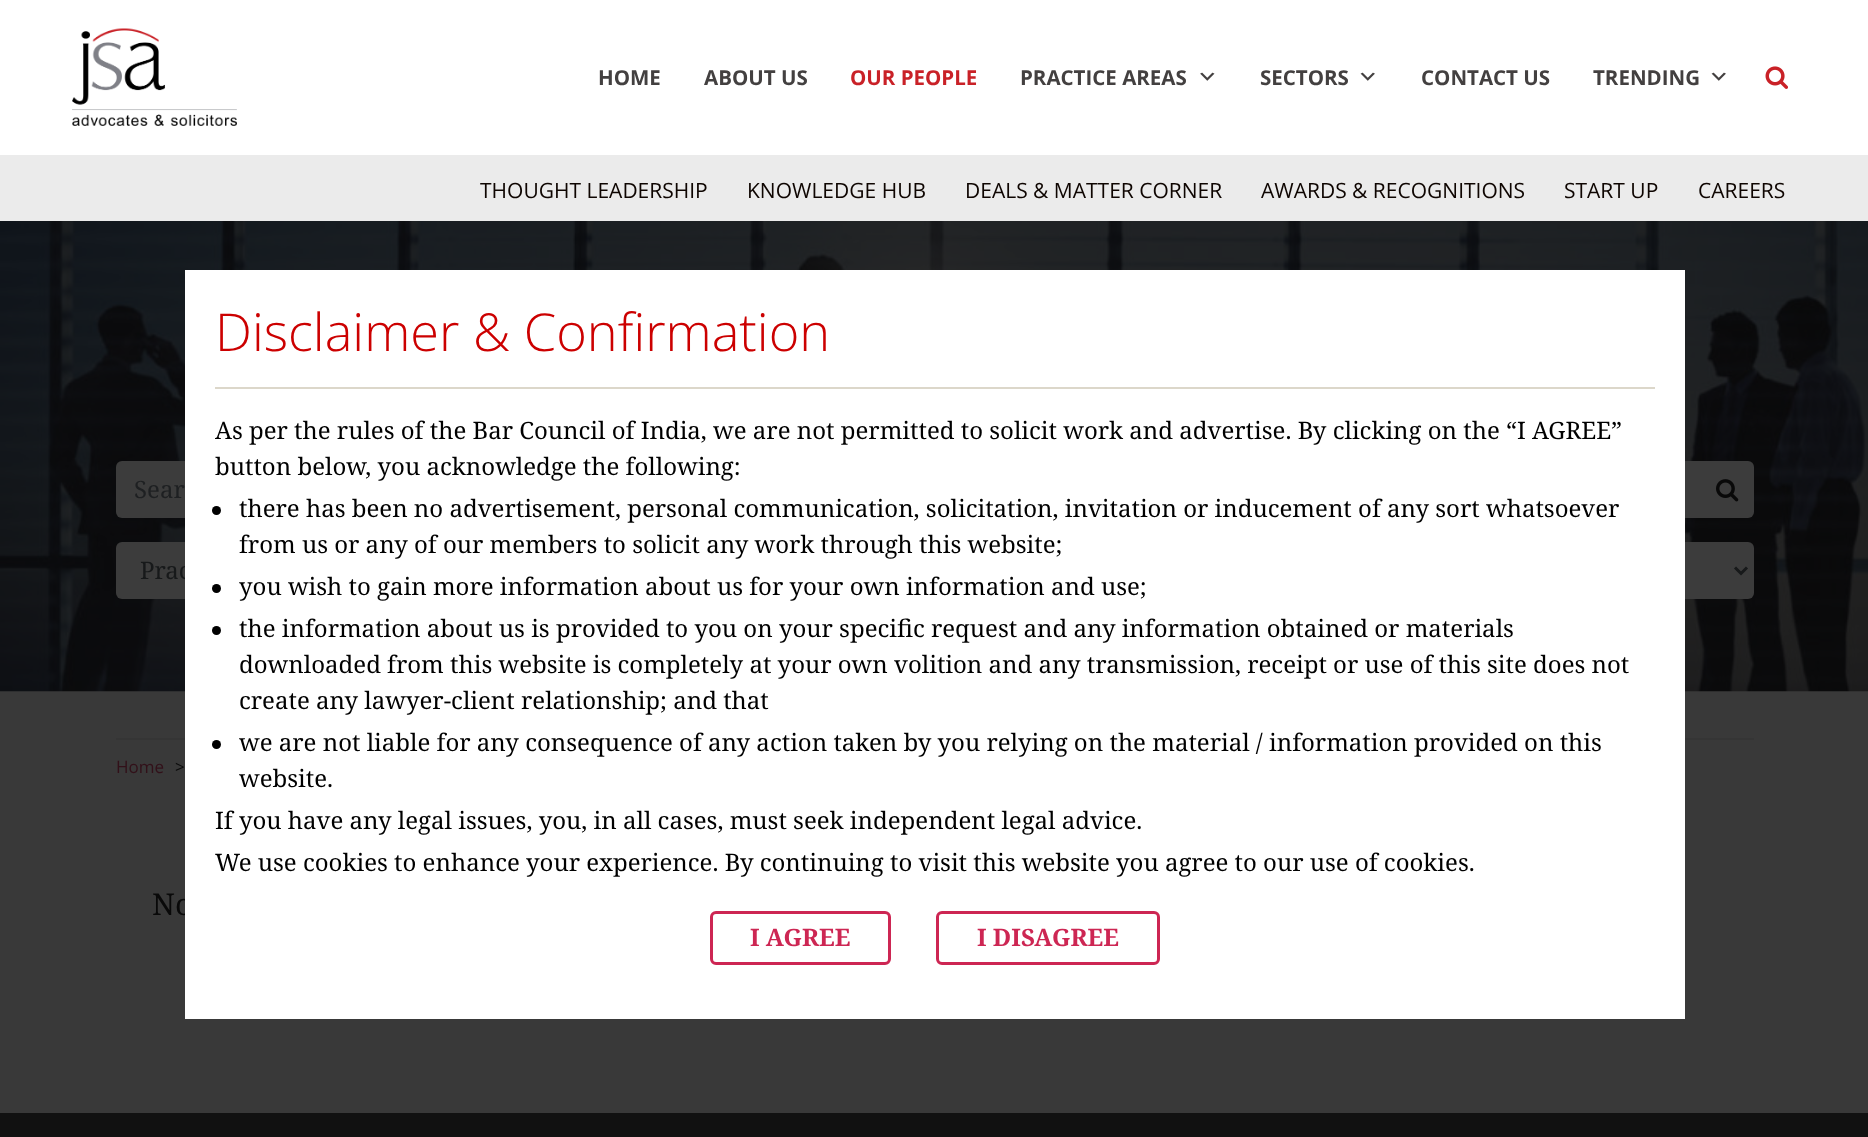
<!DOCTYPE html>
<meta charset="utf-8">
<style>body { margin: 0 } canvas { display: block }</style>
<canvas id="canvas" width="1868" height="1137"></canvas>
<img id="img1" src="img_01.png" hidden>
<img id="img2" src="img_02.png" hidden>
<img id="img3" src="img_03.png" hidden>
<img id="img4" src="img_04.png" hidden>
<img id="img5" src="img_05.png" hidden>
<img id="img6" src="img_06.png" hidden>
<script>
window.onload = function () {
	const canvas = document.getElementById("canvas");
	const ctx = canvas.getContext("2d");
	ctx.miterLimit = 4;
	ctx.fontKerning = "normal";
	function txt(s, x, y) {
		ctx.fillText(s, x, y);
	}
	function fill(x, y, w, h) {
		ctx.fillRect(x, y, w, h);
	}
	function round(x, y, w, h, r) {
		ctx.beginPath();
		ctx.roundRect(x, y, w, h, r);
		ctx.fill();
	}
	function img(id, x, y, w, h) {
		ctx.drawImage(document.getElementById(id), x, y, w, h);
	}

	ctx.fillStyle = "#393939";
	fill(0, 0, 1868, 1137);
	ctx.fillStyle = "#FFFFFF";
	fill(0, 0, 1868, 155);
	img("img1", 72, 28, 165, 98);
	img("img2", 1200, 72, 15, 9);
	img("img3", 1360, 72, 15, 9);
	img("img3", 1711, 72, 15, 9);
	img("img4", 1765, 66, 23, 23);
	ctx.fillStyle = "#EBEBEB";
	fill(0, 155, 1868, 66);
	img("img5", 0, 221, 1868, 471);
	ctx.fillStyle = "#3C3C3C";
	round(116, 461, 1638, 57, 6);
	img("img6", 1716, 479, 23, 23);
	round(116, 542, 376, 57, 6);
	round(1377, 542, 377, 57, 6);
	ctx.beginPath();
	ctx.moveTo(1735, 567.5);
	ctx.lineTo(1741, 573.5);
	ctx.lineTo(1747, 567.5);
	ctx.strokeStyle = "#17191A";
	ctx.lineWidth = 3;
	ctx.stroke();
	ctx.fillStyle = "#353535";
	fill(116, 738, 1638, 2);
	ctx.fillStyle = "#111111";
	fill(0, 1113, 1868, 24);
	ctx.font = "bold 20.5px Open Sans";
	ctx.fillStyle = "#434040";
	txt("HOME", 598, 85);
	txt("ABOUT US", 704, 85);
	ctx.fillStyle = "#C92127";
	txt("OUR PEOPLE", 850, 85);
	ctx.fillStyle = "#434040";
	txt("PRACTICE AREAS", 1020, 85);
	txt("SECTORS", 1260, 85);
	txt("CONTACT US", 1421, 85);
	txt("TRENDING", 1593, 85);
	ctx.font = "21px Open Sans";
	ctx.fillStyle = "#0E0501";
	txt("THOUGHT LEADERSHIP", 480, 198);
	txt("KNOWLEDGE HUB", 747, 198);
	txt("DEALS & MATTER CORNER", 965, 198);
	txt("AWARDS & RECOGNITIONS", 1261, 198);
	txt("START UP", 1564, 198);
	txt("CAREERS", 1698, 198);
	ctx.font = "24px Noto Serif";
	ctx.fillStyle = "#1E2022";
	txt("Sear", 134, 498);
	ctx.fillStyle = "#17191A";
	txt("Prac", 140, 579);
	ctx.font = "17px Open Sans";
	ctx.fillStyle = "#321019";
	txt("Home", 116, 773);
	ctx.fillStyle = "#090909";
	txt(">", 175, 773);
	ctx.font = "30px Noto Serif";
	txt("No", 152, 915);
	ctx.fillStyle = "#FFFFFF";
	fill(185, 270, 1500, 749);
	ctx.font = "300 52.25px Open Sans";
	ctx.fillStyle = "#CC0000";
	txt("Disclaimer & Confirmation", 215, 351);
	ctx.fillStyle = "#DCD7CA";
	fill(215, 387, 1440, 2);
	ctx.font = "24px Noto Serif";
	ctx.fillStyle = "#000000";
	txt("As per the rules of the Bar Council of India, we are not permitted to solicit work and advertise. By clicking on the “I AGREE”", 215, 439);
	txt("button below, you acknowledge the following:", 215, 475);
	ctx.beginPath();
	ctx.arc(216.5, 510.5, 4.5, 0, Math.PI * 2);
	ctx.fill();
	txt("there has been no advertisement, personal communication, solicitation, invitation or inducement of any sort whatsoever", 239, 517);
	txt("from us or any of our members to solicit any work through this website;", 239, 553);
	ctx.beginPath();
	ctx.arc(216.5, 588.5, 4.5, 0, Math.PI * 2);
	ctx.fill();
	txt("you wish to gain more information about us for your own information and use;", 239, 595);
	ctx.beginPath();
	ctx.arc(216.5, 630.5, 4.5, 0, Math.PI * 2);
	ctx.fill();
	txt("the information about us is provided to you on your specific request and any information obtained or materials", 239, 637);
	txt("downloaded from this website is completely at your own volition and any transmission, receipt or use of this site does not", 239, 673);
	txt("create any lawyer-client relationship; and that", 239, 709);
	ctx.beginPath();
	ctx.arc(216.5, 744.5, 4.5, 0, Math.PI * 2);
	ctx.fill();
	txt("we are not liable for any consequence of any action taken by you relying on the material / information provided on this", 239, 751);
	txt("website.", 239, 787);
	txt("If you have any legal issues, you, in all cases, must seek independent legal advice.", 215, 829);
	txt("We use cookies to enhance your experience. By continuing to visit this website you agree to our use of cookies.", 215, 871);
	ctx.beginPath();
	ctx.roundRect(711.5, 912.5, 178, 51, 4.5);
	ctx.strokeStyle = "#CD2653";
	ctx.stroke();
	ctx.font = "bold 24px Noto Serif";
	ctx.fillStyle = "#CD2653";
	txt("I AGREE", 750, 946);
	ctx.beginPath();
	ctx.roundRect(937.5, 912.5, 221, 51, 4.5);
	ctx.stroke();
	txt("I DISAGREE", 977, 946);
};
</script>
